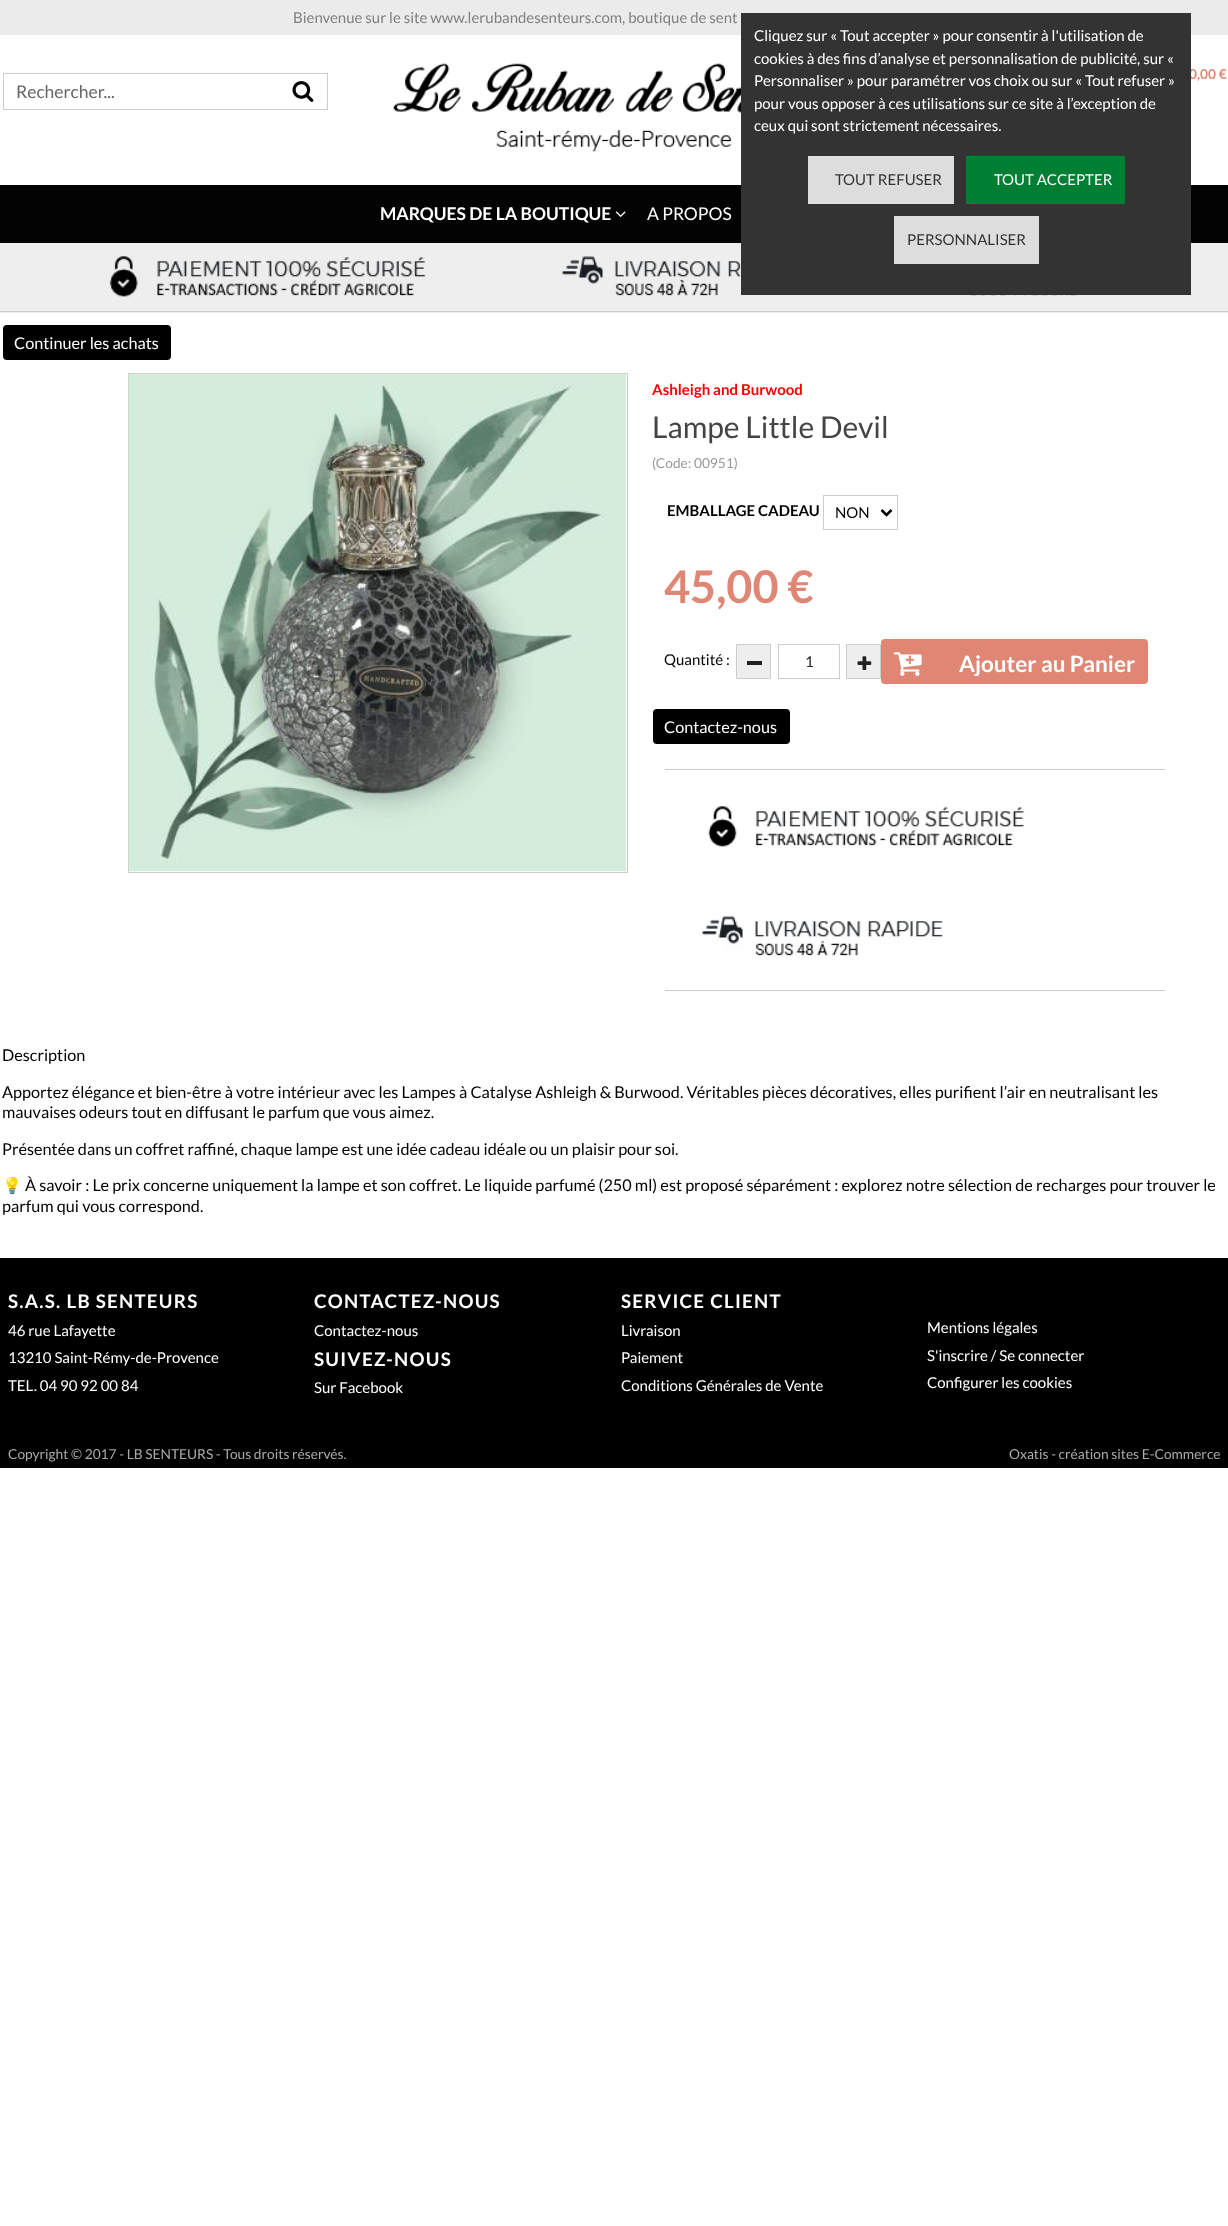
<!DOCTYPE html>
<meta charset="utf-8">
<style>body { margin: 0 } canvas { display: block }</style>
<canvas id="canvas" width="1228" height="2226"></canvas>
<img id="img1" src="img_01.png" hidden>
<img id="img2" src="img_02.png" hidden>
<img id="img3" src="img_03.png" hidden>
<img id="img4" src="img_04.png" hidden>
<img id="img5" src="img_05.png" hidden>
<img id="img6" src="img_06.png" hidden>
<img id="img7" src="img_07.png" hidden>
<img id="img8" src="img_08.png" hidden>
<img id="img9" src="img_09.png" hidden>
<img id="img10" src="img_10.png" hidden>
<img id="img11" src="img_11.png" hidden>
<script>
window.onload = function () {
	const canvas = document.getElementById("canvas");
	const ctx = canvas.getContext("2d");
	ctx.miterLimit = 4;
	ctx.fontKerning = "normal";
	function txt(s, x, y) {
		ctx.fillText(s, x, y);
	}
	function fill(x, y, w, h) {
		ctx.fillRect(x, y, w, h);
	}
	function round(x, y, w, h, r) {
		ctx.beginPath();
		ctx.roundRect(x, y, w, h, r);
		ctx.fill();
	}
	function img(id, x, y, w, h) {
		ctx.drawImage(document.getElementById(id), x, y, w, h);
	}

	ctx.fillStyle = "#FFFFFF";
	fill(0, 0, 1228, 2226);
	ctx.fillStyle = "#030303";
	fill(0, 185, 1228, 58);
	ctx.fillStyle = "#EBEBEB";
	fill(0, 0, 1228, 35);
	img("img1", 393, 63, 348, 89);
	ctx.strokeStyle = "#CCCCCC";
	ctx.strokeRect(3.5, 73.5, 324, 36);
	img("img2", 292, 81, 22, 21);
	img("img3", 615, 211, 11, 6);
	ctx.fillStyle = "#EEEEEE";
	fill(0, 243, 1228, 70);
	ctx.fillStyle = "#CCCCCC";
	fill(0, 311, 1228, 1);
	img("img4", 109, 255, 317, 42);
	img("img5", 562, 256, 241, 40);
	img("img6", 927, 295, 216, 1);
	ctx.fillStyle = "#000000";
	round(3, 325, 168, 35, 4);
	ctx.strokeRect(128.5, 373.5, 499, 499);
	img("img7", 128, 373, 499, 499);
	ctx.strokeRect(823.5, 495.5, 74, 34);
	ctx.beginPath();
	ctx.moveTo(881.5, 510);
	ctx.lineTo(886.5, 515);
	ctx.lineTo(891.5, 510);
	ctx.strokeStyle = "#000000";
	ctx.lineWidth = 2.5;
	ctx.stroke();
	ctx.fillStyle = "#EEEEEE";
	ctx.beginPath();
	ctx.rect(736.5, 644.5, 34, 34);
	ctx.fill();
	ctx.strokeStyle = "#CCCCCC";
	ctx.lineWidth = 1;
	ctx.stroke();
	ctx.fillStyle = "#212121";
	fill(747, 661, 15, 4);
	ctx.strokeRect(778.5, 644.5, 61, 34);
	ctx.fillStyle = "#EEEEEE";
	ctx.beginPath();
	ctx.rect(846.5, 644.5, 34, 34);
	ctx.fill();
	ctx.stroke();
	img("img8", 857, 656, 15, 14);
	ctx.fillStyle = "#DF8674";
	round(881, 639, 267, 45, 4);
	img("img9", 893, 652, 29, 24);
	ctx.fillStyle = "#000000";
	round(653, 709, 137, 35, 4);
	ctx.fillStyle = "#CCCCCC";
	fill(665, 769, 500, 1);
	fill(665, 990, 500, 1);
	img("img10", 708, 805, 329, 42);
	img("img11", 700, 916, 243, 40);
	ctx.fillStyle = "#000000";
	fill(0, 1258, 1228, 210);
	ctx.font = "15px Lato";
	ctx.fillStyle = "#808080";
	txt("Bienvenue sur le site www.lerubandesenteurs.com, boutique de sent", 293, 23);
	ctx.font = "bold 13.75px Lato";
	ctx.fillStyle = "#DF8674";
	txt("0,00 €", 1189, 79);
	ctx.font = "17.5px Lato";
	ctx.fillStyle = "#666666";
	txt("Rechercher...", 16, 98);
	ctx.font = "bold 17.5px Lato";
	ctx.fillStyle = "#FFFFFF";
	txt("MARQUES DE LA BOUTIQUE", 380, 220);
	ctx.font = "17.5px Lato";
	txt("A PROPOS", 647, 220);
	ctx.fillStyle = "#333333";
	fill(741, 13, 450, 282);
	ctx.font = "15px Lato";
	ctx.fillStyle = "#FFFFFF";
	txt("Cliquez sur « Tout accepter » pour consentir à l'utilisation de", 754, 41);
	txt("cookies à des fins d’analyse et personnalisation de publicité, sur «", 754, 64);
	txt("Personnaliser » pour paramétrer vos choix ou sur « Tout refuser »", 754, 86);
	txt("pour vous opposer à ces utilisations sur ce site à l’exception de", 754, 109);
	txt("ceux qui sont strictement nécessaires.", 754, 131);
	ctx.fillStyle = "#DDDDDD";
	fill(808, 156, 146, 48);
	ctx.fillStyle = "#333333";
	txt("TOUT REFUSER", 835, 185);
	ctx.fillStyle = "#007E33";
	fill(966, 156, 159, 48);
	ctx.fillStyle = "#FFFFFF";
	txt("TOUT ACCEPTER", 994, 185);
	ctx.fillStyle = "#DDDDDD";
	fill(894, 216, 145, 48);
	ctx.fillStyle = "#333333";
	txt("PERSONNALISER", 907, 245);
	ctx.font = "16.25px Lato";
	ctx.fillStyle = "#FFFFFF";
	txt("Continuer les achats", 14, 349);
	ctx.font = "bold 15px Lato";
	ctx.fillStyle = "#FF0000";
	txt("Ashleigh and Burwood", 652, 395);
	ctx.font = "30px Lato";
	ctx.fillStyle = "#444444";
	txt("Lampe Little Devil", 652, 438);
	ctx.font = "13.75px Lato";
	ctx.fillStyle = "#999999";
	txt("(Code: 00951)", 652, 468);
	ctx.font = "bold 15px Lato";
	ctx.fillStyle = "#000000";
	txt("EMBALLAGE CADEAU", 667, 516);
	ctx.font = "15px Lato";
	txt("NON", 835, 518);
	ctx.font = "bold 45px Lato";
	ctx.fillStyle = "#DF8674";
	txt("45,00 €", 664, 603);
	ctx.font = "15px Lato";
	ctx.fillStyle = "#000000";
	txt("Quantité :", 664, 665);
	ctx.fillStyle = "#212121";
	txt("1", 805, 667);
	ctx.font = "bold 22.5px Lato";
	ctx.fillStyle = "#FFFFFF";
	txt("Ajouter au Panier", 959, 672);
	ctx.font = "16.25px Lato";
	txt("Contactez-nous", 664, 733);
	ctx.fillStyle = "#000000";
	txt("Description", 2, 1061);
	txt("Apportez élégance et bien-être à votre intérieur avec les Lampes à Catalyse Ashleigh & Burwood. Véritables pièces décoratives, elles purifient l’air en neutralisant les", 2, 1098);
	txt("mauvaises odeurs tout en diffusant le parfum que vous aimez.", 2, 1118);
	txt("Présentée dans un coffret raffiné, chaque lampe est une idée cadeau idéale ou un plaisir pour soi.", 2, 1155);
	ctx.font = "16.25px Noto Color Emoji";
	txt("💡", 2, 1191);
	ctx.font = "16.25px Lato";
	txt("À savoir : Le prix concerne uniquement la lampe et son coffret. Le liquide parfumé (250 ml) est proposé séparément : explorez notre sélection de recharges pour trouver le", 25, 1191);
	txt("parfum qui vous correspond.", 2, 1212);
	ctx.letterSpacing = "1.25px";
	ctx.font = "bold 18.75px Lato";
	ctx.fillStyle = "#FFFFFF";
	txt("S.A.S. LB SENTEURS", 8, 1308);
	txt("CONTACTEZ-NOUS", 314, 1308);
	txt("SERVICE CLIENT", 621, 1308);
	ctx.letterSpacing = "0px";
	ctx.font = "15px Lato";
	txt("46 rue Lafayette", 8, 1336);
	txt("Contactez-nous", 314, 1336);
	txt("Livraison", 621, 1336);
	txt("Mentions légales", 927, 1333);
	txt("13210 Saint-Rémy-de-Provence", 8, 1363);
	ctx.letterSpacing = "1.25px";
	ctx.font = "bold 18.75px Lato";
	txt("SUIVEZ-NOUS", 314, 1366);
	ctx.letterSpacing = "0px";
	ctx.font = "15px Lato";
	txt("Paiement", 621, 1363);
	txt("S'inscrire / Se connecter", 927, 1361);
	txt("TEL. 04 90 92 00 84", 8, 1391);
	txt("Sur Facebook", 314, 1393);
	txt("Conditions Générales de Vente", 621, 1391);
	txt("Configurer les cookies", 927, 1388);
	ctx.font = "13.75px Lato";
	ctx.fillStyle = "#ACACAC";
	txt("Copyright © 2017 - LB SENTEURS - Tous droits réservés.", 8, 1459);
	txt("Oxatis - création sites E-Commerce", 1009, 1459);
};
</script>
